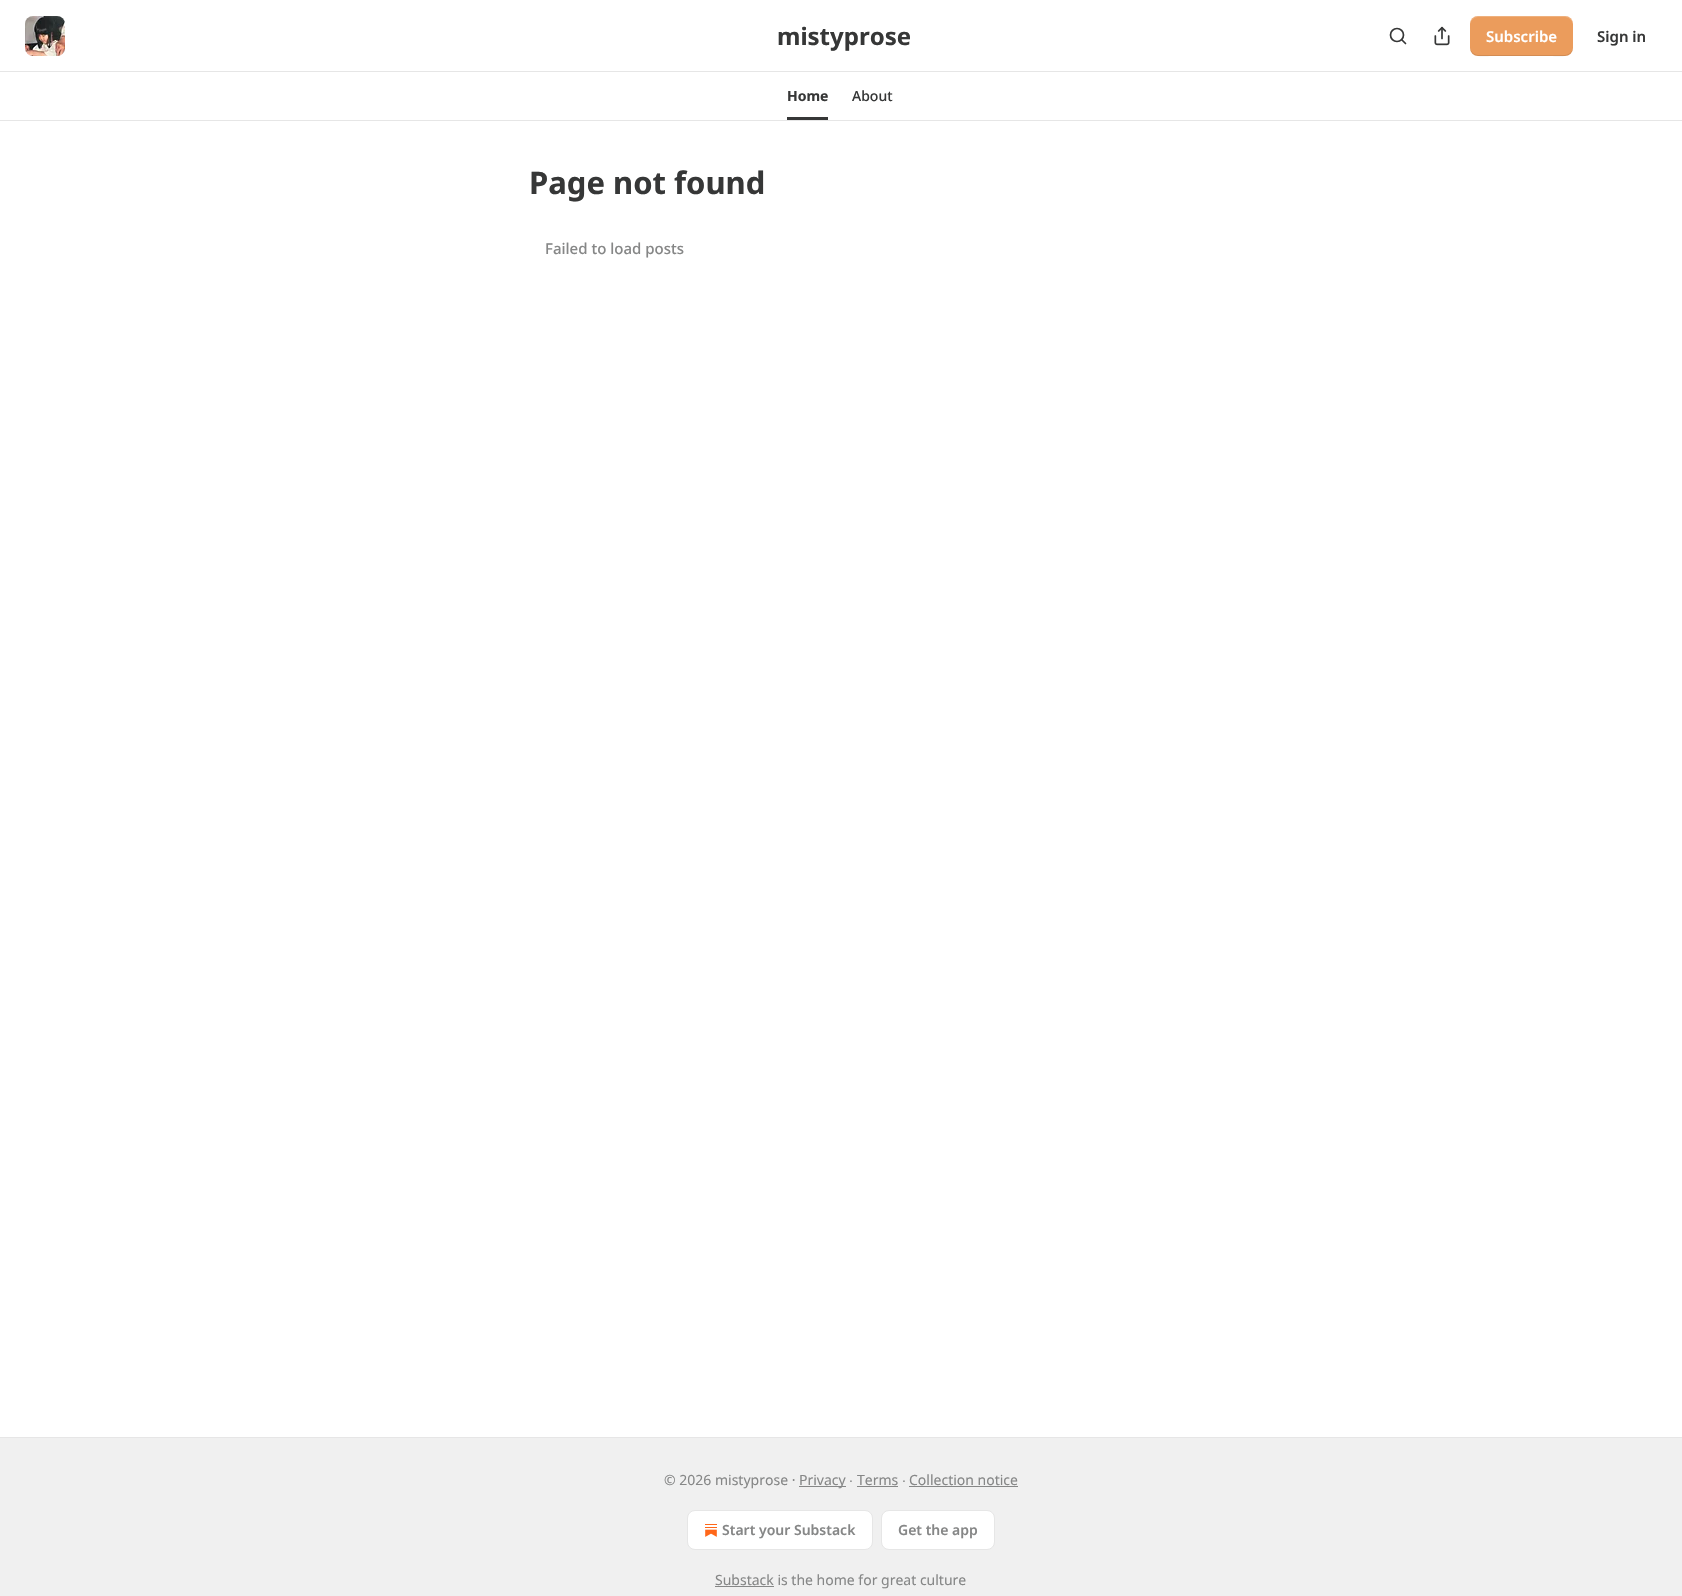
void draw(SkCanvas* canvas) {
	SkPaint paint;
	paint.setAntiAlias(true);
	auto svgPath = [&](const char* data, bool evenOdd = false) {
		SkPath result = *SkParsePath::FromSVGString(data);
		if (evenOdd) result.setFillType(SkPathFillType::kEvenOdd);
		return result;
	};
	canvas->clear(0xffffffff);
	canvas->drawImageRect(SkImages::DeferredFromEncodedData(SkData::MakeFromFileName("img1.png")), SkRect::MakeXYWH(25, 16, 40, 40), SkSamplingOptions());
	SkFont f1(fontMgr->matchFamilyStyle("Noto Sans", SkFontStyle::Bold()), 24);
	f1.setSubpixel(true);
	paint.setColor(0xff363737);
	canvas->drawString("mistyprose", 777, 45, f1, paint);
	paint.setStroke(true);
	paint.setStrokeWidth(1.7);
	canvas->drawCircle(1397, 35, 6.5, paint);
	paint.setStrokeCap(SkPaint::kRound_Cap);
	paint.setStrokeJoin(SkPaint::kRound_Join);
	canvas->drawPath(svgPath("M1405.5 43.5L1402 40"), paint);
	canvas->drawImageRect(SkImages::DeferredFromEncodedData(SkData::MakeFromFileName("img2.png")), SkRect::MakeXYWH(1434, 26, 16, 20), SkSamplingOptions());
	paint.setStroke(false);
	paint.setColor(0xffeb9c5c);
	canvas->drawRoundRect(SkRect::MakeXYWH(1470, 16, 103, 40), 8, 8, paint);
	paint.setColor(0x1a000000);
	canvas->drawPath(svgPath("M1470 47C1470 59 1484 56 1492 56H1550C1559 56 1573 59 1573 47C1573 51 1569 55 1565 55H1478C1474 55 1470 51 1470 47Z"), paint);
	paint.setColor(0x33ffffff);
	canvas->drawPath(svgPath("M1478 17H1565C1569 17 1573 21 1573 25C1573 13 1559 16 1550 16H1492C1484 16 1470 13 1470 25C1470 21 1474 17 1478 17Z"), paint);
	SkFont f2(fontMgr->matchFamilyStyle("Noto Sans", SkFontStyle(600, SkFontStyle::kNormal_Width, SkFontStyle::kUpright_Slant)), 15);
	f2.setSubpixel(true);
	paint.setColor(0xffffffff);
	canvas->drawString("Subscribe", 1486, 42, f2, paint);
	paint.setColor(0xff363737);
	canvas->drawString("Sign in", 1597, 42, f2, paint);
	paint.setColor(0xffe6e6e6);
	canvas->drawRect(SkRect::MakeXYWH(0, 71, 1682, 1), paint);
	canvas->drawRect(SkRect::MakeXYWH(0, 120, 1682, 1), paint);
	paint.setColor(0xff363737);
	canvas->drawRect(SkRect::MakeXYWH(787, 117, 41, 3), paint);
	SkFont f3(fontMgr->matchFamilyStyle("Noto Sans", SkFontStyle::Bold()), 14);
	f3.setSubpixel(true);
	canvas->drawString("Home", 787, 101, f3, paint);
	SkFont f4(fontMgr->matchFamilyStyle("Noto Sans", SkFontStyle(500, SkFontStyle::kNormal_Width, SkFontStyle::kUpright_Slant)), 14);
	f4.setSubpixel(true);
	canvas->drawString("About", 852, 101, f4, paint);
	SkFont f5(fontMgr->matchFamilyStyle("Noto Sans", SkFontStyle::Bold()), 31);
	f5.setSubpixel(true);
	canvas->drawString("Page not found", 529, 194, f5, paint);
	SkFont f6(fontMgr->matchFamilyStyle("Noto Sans", SkFontStyle(500, SkFontStyle::kNormal_Width, SkFontStyle::kUpright_Slant)), 15);
	f6.setSubpixel(true);
	paint.setColor(0xff868787);
	canvas->drawString("Failed to load posts", 545, 254, f6, paint);
	paint.setColor(0xfff0f0f0);
	canvas->drawRect(SkRect::MakeXYWH(0, 1438, 1682, 158), paint);
	paint.setColor(0xffe6e6e6);
	canvas->drawRect(SkRect::MakeXYWH(0, 1437, 1682, 1), paint);
	SkFont f7(fontMgr->matchFamilyStyle("Noto Sans", SkFontStyle::Normal()), 14);
	f7.setSubpixel(true);
	paint.setColor(0xff868787);
	canvas->drawString("© 2026 mistyprose ·", 664, 1485, f7, paint);
	canvas->drawRect(SkRect::MakeXYWH(799, 1486, 47, 1), paint);
	canvas->drawString("Privacy", 799, 1485, f7, paint);
	SkFont f8(fontMgr->matchFamilyStyle("Liberation Sans", SkFontStyle::Normal()), 14);
	f8.setSubpixel(true);
	canvas->drawString("∙", 849, 1485, f8, paint);
	canvas->drawString("Terms", 857, 1485, f7, paint);
	canvas->drawRect(SkRect::MakeXYWH(857, 1486, 41, 1), paint);
	canvas->drawString("∙", 902, 1485, f8, paint);
	canvas->drawString("Collection notice", 909, 1485, f7, paint);
	canvas->drawRect(SkRect::MakeXYWH(909, 1486, 109, 1), paint);
	paint.setColor(0xffffffff);
	canvas->drawRoundRect(SkRect::MakeXYWH(687.5, 1510.5, 185, 39), 7.5, 7.5, paint);
	paint.setStroke(true);
	paint.setStrokeWidth(1);
	paint.setStrokeCap(SkPaint::kButt_Cap);
	paint.setStrokeJoin(SkPaint::kMiter_Join);
	paint.setColor(0xffe6e6e6);
	canvas->drawRoundRect(SkRect::MakeXYWH(687.5, 1510.5, 185, 39), 7.5, 7.5, paint);
	canvas->drawImageRect(SkImages::DeferredFromEncodedData(SkData::MakeFromFileName("img3.png")), SkRect::MakeXYWH(705, 1524, 12, 13), SkSamplingOptions());
	SkFont f9(fontMgr->matchFamilyStyle("Noto Sans", SkFontStyle(600, SkFontStyle::kNormal_Width, SkFontStyle::kUpright_Slant)), 14);
	f9.setSubpixel(true);
	paint.setStroke(false);
	paint.setColor(0xff868787);
	canvas->drawString("Start your Substack", 722, 1535, f9, paint);
	paint.setColor(0xffffffff);
	canvas->drawRoundRect(SkRect::MakeXYWH(881.5, 1510.5, 113, 39), 7.5, 7.5, paint);
	paint.setStroke(true);
	paint.setColor(0xffe6e6e6);
	canvas->drawRoundRect(SkRect::MakeXYWH(881.5, 1510.5, 113, 39), 7.5, 7.5, paint);
	paint.setStroke(false);
	paint.setColor(0xff868787);
	canvas->drawString("Get the app", 898, 1535, f9, paint);
	canvas->drawRect(SkRect::MakeXYWH(715, 1586, 59, 1), paint);
	canvas->drawString("Substack is the home for great culture", 715, 1585, f7, paint);
}
